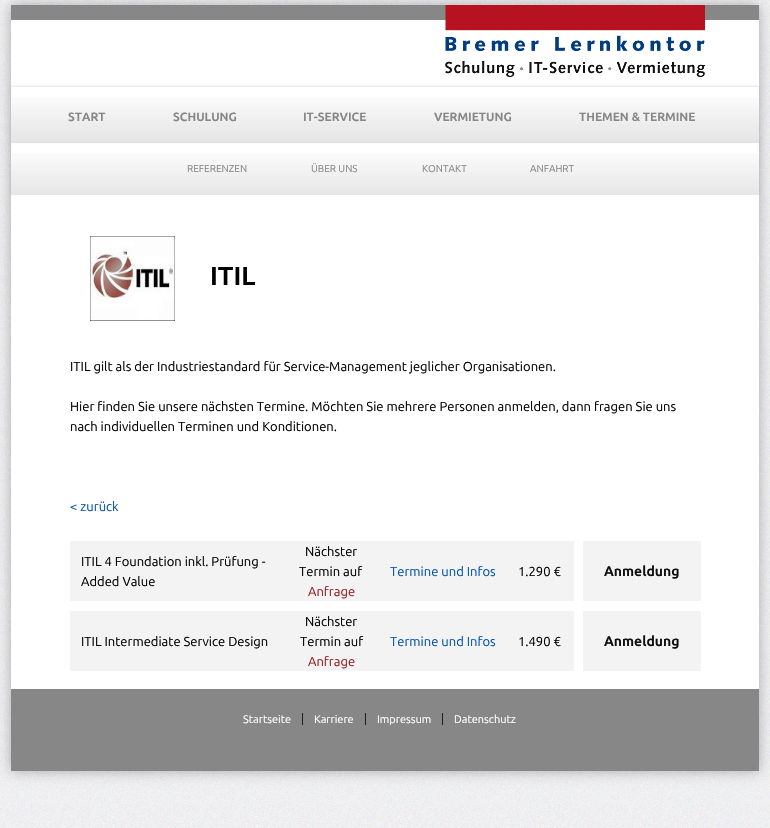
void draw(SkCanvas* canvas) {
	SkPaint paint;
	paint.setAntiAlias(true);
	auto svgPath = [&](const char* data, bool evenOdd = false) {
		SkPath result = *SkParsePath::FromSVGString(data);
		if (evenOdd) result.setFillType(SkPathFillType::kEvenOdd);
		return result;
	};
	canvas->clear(0xffffffff);
	canvas->drawImageRect(SkImages::DeferredFromEncodedData(SkData::MakeFromFileName("img1.png")), SkRect::MakeXYWH(0, 0, 770, 828), SkSamplingOptions());
	paint.setColor(0x4d000000);
	paint.setMaskFilter(SkMaskFilter::MakeBlur(kNormal_SkBlurStyle, 6.5));
	canvas->drawRect(SkRect::MakeXYWH(11, 5, 748, 766), paint);
	paint.setMaskFilter(nullptr);
	paint.setColor(0xffffffff);
	canvas->drawRect(SkRect::MakeXYWH(11, 20, 748, 669), paint);
	paint.setColor(0xff878787);
	canvas->drawRect(SkRect::MakeXYWH(11, 5, 748, 15), paint);
	canvas->drawImageRect(SkImages::DeferredFromEncodedData(SkData::MakeFromFileName("img2.png")), SkRect::MakeXYWH(445, 5, 260, 72), SkSamplingOptions());
	canvas->save();
	canvas->clipPath(svgPath("M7 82H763V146H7ZM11 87H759V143H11Z", true), true);
	paint.setColor(0x1a000000);
	paint.setMaskFilter(SkMaskFilter::MakeBlur(kNormal_SkBlurStyle, 1));
	canvas->drawRect(SkRect::MakeXYWH(11, 86, 748, 56), paint);
	paint.setMaskFilter(nullptr);
	canvas->restore();
	canvas->drawImageRect(SkImages::DeferredFromEncodedData(SkData::MakeFromFileName("img3.png")), SkRect::MakeXYWH(11, 97, 748, 46), SkSamplingOptions());
	SkFont f1(fontMgr->matchFamilyStyle("Ubuntu", SkFontStyle::Bold()), 12);
	f1.setSubpixel(true);
	paint.setColor(0xff878787);
	canvas->drawString("START", 68, 121, f1, paint);
	canvas->drawString("SCHULUNG", 173, 121, f1, paint);
	canvas->drawString("IT-SERVICE", 303, 121, f1, paint);
	canvas->drawString("VERMIETUNG", 434, 121, f1, paint);
	canvas->drawString("THEMEN & TERMINE", 579, 121, f1, paint);
	canvas->save();
	canvas->clipPath(svgPath("M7 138H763V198H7ZM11 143H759V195H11Z", true), true);
	paint.setColor(0x1a000000);
	paint.setMaskFilter(SkMaskFilter::MakeBlur(kNormal_SkBlurStyle, 1));
	canvas->drawRect(SkRect::MakeXYWH(11, 142, 748, 52), paint);
	paint.setMaskFilter(nullptr);
	canvas->restore();
	canvas->drawImageRect(SkImages::DeferredFromEncodedData(SkData::MakeFromFileName("img4.png")), SkRect::MakeXYWH(11, 153, 748, 42), SkSamplingOptions());
	SkFont f2(fontMgr->matchFamilyStyle("Ubuntu", SkFontStyle::Normal()), 10);
	f2.setSubpixel(true);
	paint.setColor(0xff878787);
	canvas->drawString("REFERENZEN", 187, 172, f2, paint);
	canvas->drawString("ÜBER UNS", 311, 172, f2, paint);
	canvas->drawString("KONTAKT", 422, 172, f2, paint);
	canvas->drawString("ANFAHRT", 530, 172, f2, paint);
	canvas->drawImageRect(SkImages::DeferredFromEncodedData(SkData::MakeFromFileName("img5.png")), SkRect::MakeXYWH(90, 236, 85, 85), SkSamplingOptions());
	SkFont f3(fontMgr->matchFamilyStyle("Ubuntu", SkFontStyle::Bold()), 26);
	f3.setSubpixel(true);
	paint.setColor(0xff000000);
	canvas->drawString("ITIL", 210, 285, f3, paint);
	SkFont f4(fontMgr->matchFamilyStyle("Ubuntu", SkFontStyle::Normal()), 13);
	f4.setSubpixel(true);
	canvas->drawString("ITIL gilt als der Industriestandard für Service-Management jeglicher Organisationen.", 70, 371, f4, paint);
	canvas->drawString("Hier finden Sie unsere nächsten Termine. Möchten Sie mehrere Personen anmelden, dann fragen Sie uns", 70, 411, f4, paint);
	canvas->drawString("nach individuellen Terminen und Konditionen.", 70, 431, f4, paint);
	paint.setColor(0xff0252aa);
	canvas->drawString("< zurück", 70, 511, f4, paint);
	paint.setColor(0xfff3f3f3);
	canvas->drawRect(SkRect::MakeXYWH(70, 541, 504, 60), paint);
	paint.setColor(0xff000000);
	canvas->drawString("ITIL 4 Foundation inkl. Prüfung -", 81, 566, f4, paint);
	canvas->drawString("Added Value", 81, 586, f4, paint);
	canvas->drawString("Nächster", 305, 556, f4, paint);
	canvas->drawString("Termin auf", 299, 576, f4, paint);
	paint.setColor(0xff981e23);
	canvas->drawString("Anfrage", 308, 596, f4, paint);
	paint.setColor(0xff0252aa);
	canvas->drawString("Termine und Infos", 390, 576, f4, paint);
	paint.setColor(0xff000000);
	canvas->drawString("1.290 €", 518, 576, f4, paint);
	paint.setColor(0xfff3f3f3);
	canvas->drawRect(SkRect::MakeXYWH(583, 541, 118, 60), paint);
	SkFont f5(fontMgr->matchFamilyStyle("Ubuntu", SkFontStyle::Bold()), 14);
	f5.setSubpixel(true);
	paint.setColor(0xff0f0f0f);
	canvas->drawString("Anmeldung", 604, 576, f5, paint);
	paint.setColor(0xfff3f3f3);
	canvas->drawRect(SkRect::MakeXYWH(70, 611, 504, 60), paint);
	paint.setColor(0xff000000);
	canvas->drawString("ITIL Intermediate Service Design", 81, 646, f4, paint);
	canvas->drawString("Nächster", 305, 626, f4, paint);
	canvas->drawString("Termin auf", 300, 646, f4, paint);
	paint.setColor(0xff981e23);
	canvas->drawString("Anfrage", 308, 666, f4, paint);
	paint.setColor(0xff0252aa);
	canvas->drawString("Termine und Infos", 390, 646, f4, paint);
	paint.setColor(0xff000000);
	canvas->drawString("1.490 €", 518, 646, f4, paint);
	paint.setColor(0xfff3f3f3);
	canvas->drawRect(SkRect::MakeXYWH(583, 611, 118, 60), paint);
	paint.setColor(0xff0f0f0f);
	canvas->drawString("Anmeldung", 604, 646, f5, paint);
	paint.setColor(0xff878787);
	canvas->drawRect(SkRect::MakeXYWH(11, 689, 748, 82), paint);
	SkFont f6(fontMgr->matchFamilyStyle("Ubuntu", SkFontStyle::Normal()), 11);
	f6.setSubpixel(true);
	paint.setColor(0xffffffff);
	canvas->drawString("Startseite", 243, 723, f6, paint);
	canvas->drawString("Karriere", 314, 723, f6, paint);
	paint.setColor(0xff1a1f20);
	canvas->drawRect(SkRect::MakeXYWH(302, 713, 1, 12), paint);
	paint.setColor(0xffffffff);
	canvas->drawString("Impressum", 377, 723, f6, paint);
	paint.setColor(0xff1a1f20);
	canvas->drawRect(SkRect::MakeXYWH(365, 713, 1, 12), paint);
	paint.setColor(0xffffffff);
	canvas->drawString("Datenschutz", 454, 723, f6, paint);
	paint.setColor(0xff1a1f20);
	canvas->drawRect(SkRect::MakeXYWH(442, 713, 1, 12), paint);
}
